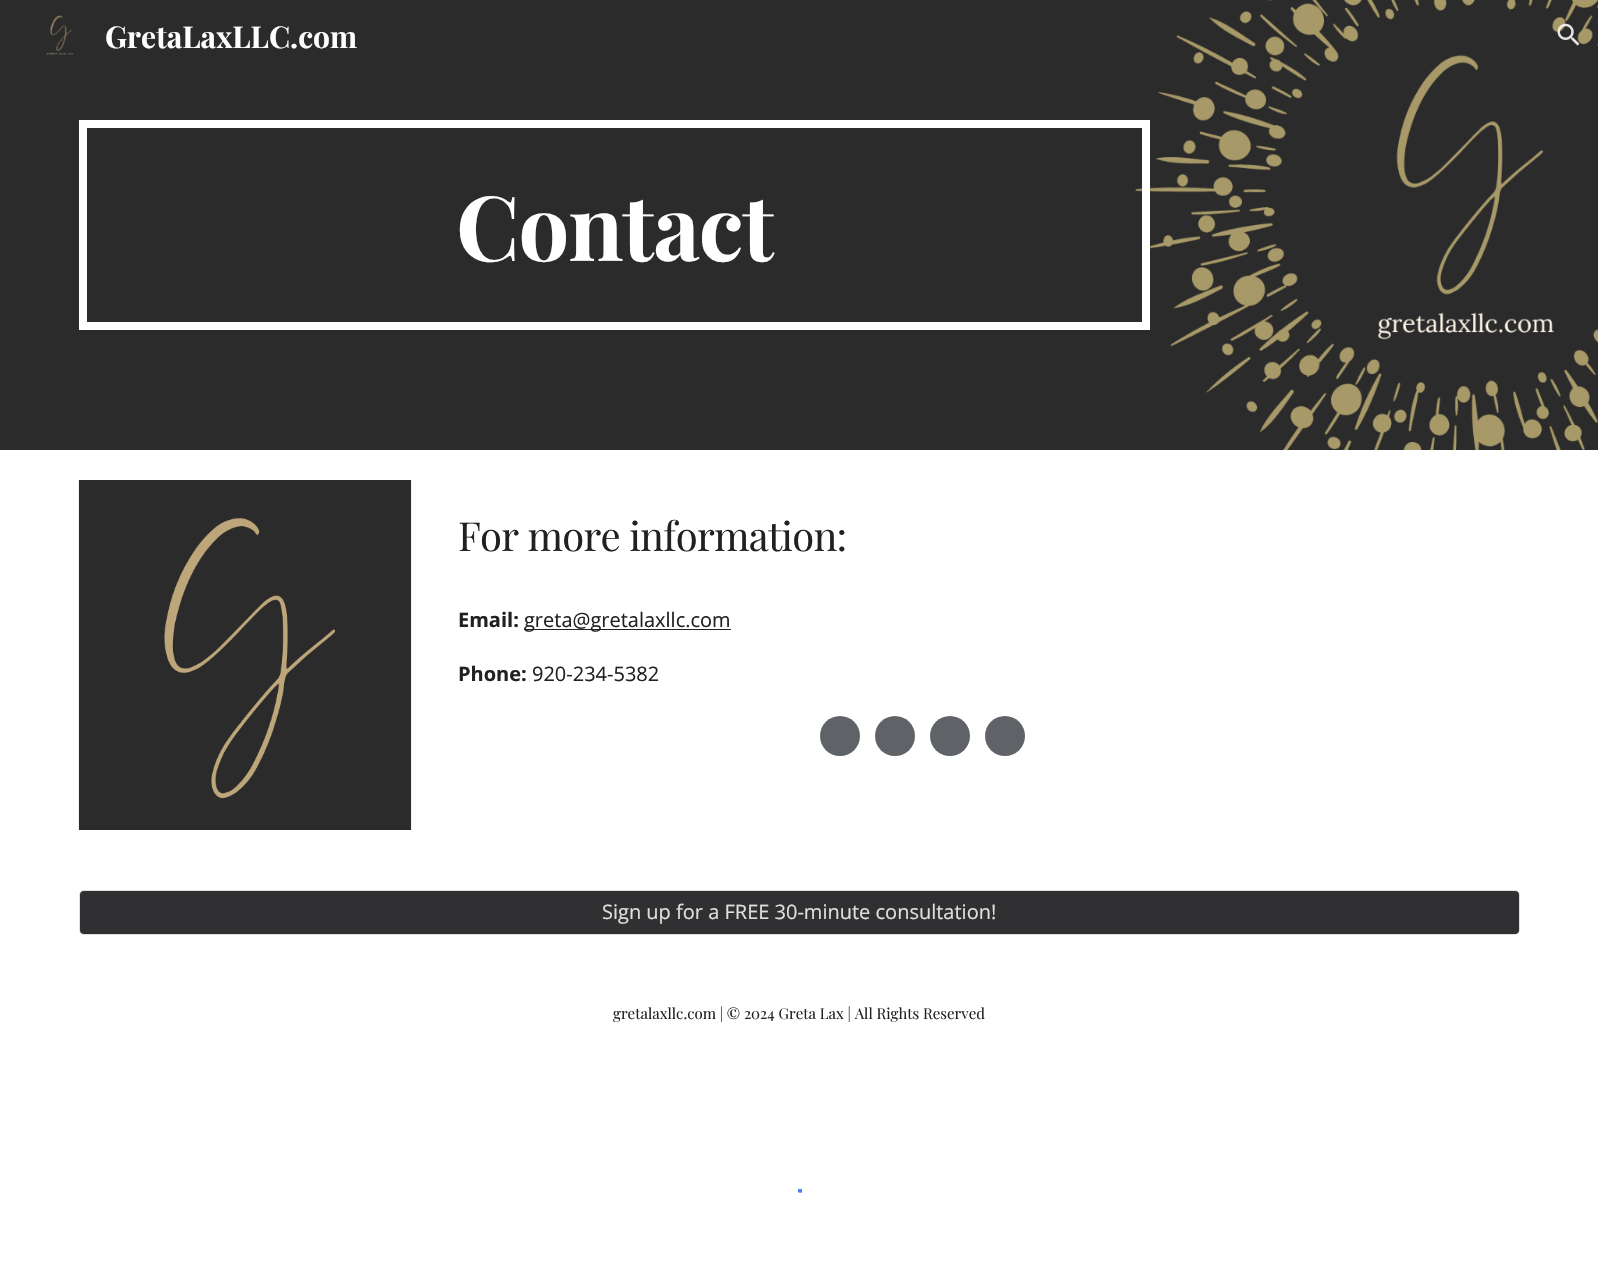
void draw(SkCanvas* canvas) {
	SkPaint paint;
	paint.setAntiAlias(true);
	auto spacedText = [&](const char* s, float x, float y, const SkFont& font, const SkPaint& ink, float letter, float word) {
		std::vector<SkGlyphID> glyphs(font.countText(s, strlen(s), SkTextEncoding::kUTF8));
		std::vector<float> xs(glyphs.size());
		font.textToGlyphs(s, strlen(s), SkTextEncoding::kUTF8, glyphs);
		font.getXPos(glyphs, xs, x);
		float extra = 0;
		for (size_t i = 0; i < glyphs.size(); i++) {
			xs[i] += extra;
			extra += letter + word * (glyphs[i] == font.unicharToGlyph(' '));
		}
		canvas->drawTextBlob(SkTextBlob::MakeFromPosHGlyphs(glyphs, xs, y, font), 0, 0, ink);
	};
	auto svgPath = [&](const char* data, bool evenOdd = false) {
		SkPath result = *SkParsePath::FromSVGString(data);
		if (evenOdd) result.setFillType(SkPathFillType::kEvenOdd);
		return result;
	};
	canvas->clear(0xffffffff);
	canvas->drawImageRect(SkImages::DeferredFromEncodedData(SkData::MakeFromFileName("img3.png")), SkRect::MakeXYWH(0, 0, 1598, 450), SkSamplingOptions());
	canvas->drawImageRect(SkImages::DeferredFromEncodedData(SkData::MakeFromFileName("img1.png")), SkRect::MakeXYWH(46, 15, 28, 40), SkSamplingOptions());
	SkFont f1(fontMgr->matchFamilyStyle("Playfair Display", SkFontStyle::Bold()), 30);
	f1.setSubpixel(true);
	paint.setColor(0xffffffff);
	canvas->drawString("GretaLaxLLC.com", 105, 48, f1, paint);
	canvas->drawImageRect(SkImages::DeferredFromEncodedData(SkData::MakeFromFileName("img2.png")), SkRect::MakeXYWH(1557, 23, 23, 23), SkSamplingOptions());
	paint.setStroke(true);
	paint.setStrokeWidth(8);
	canvas->drawRect(SkRect::MakeXYWH(83, 124, 1063, 202), paint);
	SkFont f2(fontMgr->matchFamilyStyle("Playfair Display", SkFontStyle::Bold()), 90);
	f2.setSubpixel(true);
	paint.setStroke(false);
	spacedText("Contact", 456, 261, f2, paint, -1, 0);
	canvas->drawImageRect(SkImages::DeferredFromEncodedData(SkData::MakeFromFileName("img4.png")), SkRect::MakeXYWH(78, 480, 334, 350), SkSamplingOptions());
	SkFont f3(fontMgr->matchFamilyStyle("Playfair Display", SkFontStyle::Normal()), 40);
	f3.setSubpixel(true);
	paint.setColor(0xff212121);
	spacedText("For more information:", 458, 551, f3, paint, -0.75, 0);
	SkFont f4(fontMgr->matchFamilyStyle("Open Sans", SkFontStyle::Bold()), 20);
	f4.setSubpixel(true);
	canvas->drawString("Email:", 458, 627, f4, paint);
	canvas->drawRect(SkRect::MakeXYWH(524, 629, 207, 1), paint);
	SkFont f5(fontMgr->matchFamilyStyle("Open Sans", SkFontStyle::Normal()), 20);
	f5.setSubpixel(true);
	canvas->drawString("greta@gretalaxllc.com", 524, 627, f5, paint);
	canvas->drawString("Phone:", 458, 681, f4, paint);
	canvas->drawString("920-234-5382", 532, 681, f5, paint);
	paint.setColor(0xff5f6368);
	canvas->drawCircle(840, 736, 20, paint);
	canvas->drawCircle(895, 736, 20, paint);
	canvas->drawCircle(950, 736, 20, paint);
	canvas->drawCircle(1005, 736, 20, paint);
	paint.setStroke(true);
	paint.setStrokeWidth(1);
	paint.setColor(0xffe1dfdb);
	canvas->drawRoundRect(SkRect::MakeXYWH(79.5, 890.5, 1440, 44), 4.5, 4.5, paint);
	paint.setStroke(false);
	paint.setColor(0xff303033);
	canvas->drawRoundRect(SkRect::MakeXYWH(80, 891, 1439, 43), 4, 4, paint);
	paint.setColor(0xffe1dfdb);
	canvas->drawString("Sign up for a FREE 30-minute consultation!", 602, 919, f5, paint);
	SkFont f6(fontMgr->matchFamilyStyle("Playfair Display", SkFontStyle::Normal()), 15);
	f6.setSubpixel(true);
	paint.setColor(0xff212121);
	canvas->drawString("gretalaxllc.com | © 2024 Greta Lax | All Rights Reserved", 613, 1019, f6, paint);
	canvas->save();
	canvas->clipRect(SkRect::MakeXYWH(798, 1189, 4, 35));
	paint.setStroke(true);
	paint.setStrokeWidth(3.8);
	paint.setColor(0xff4486f4);
	canvas->drawPath(svgPath("M789 1217.5C785 1213.5 783.5 1208 784.5 1203C785.5 1199 787.5 1195.5 791 1193.5C806 1182.5 822.5 1204.5 810 1217.5"), paint);
	canvas->restore();
}
